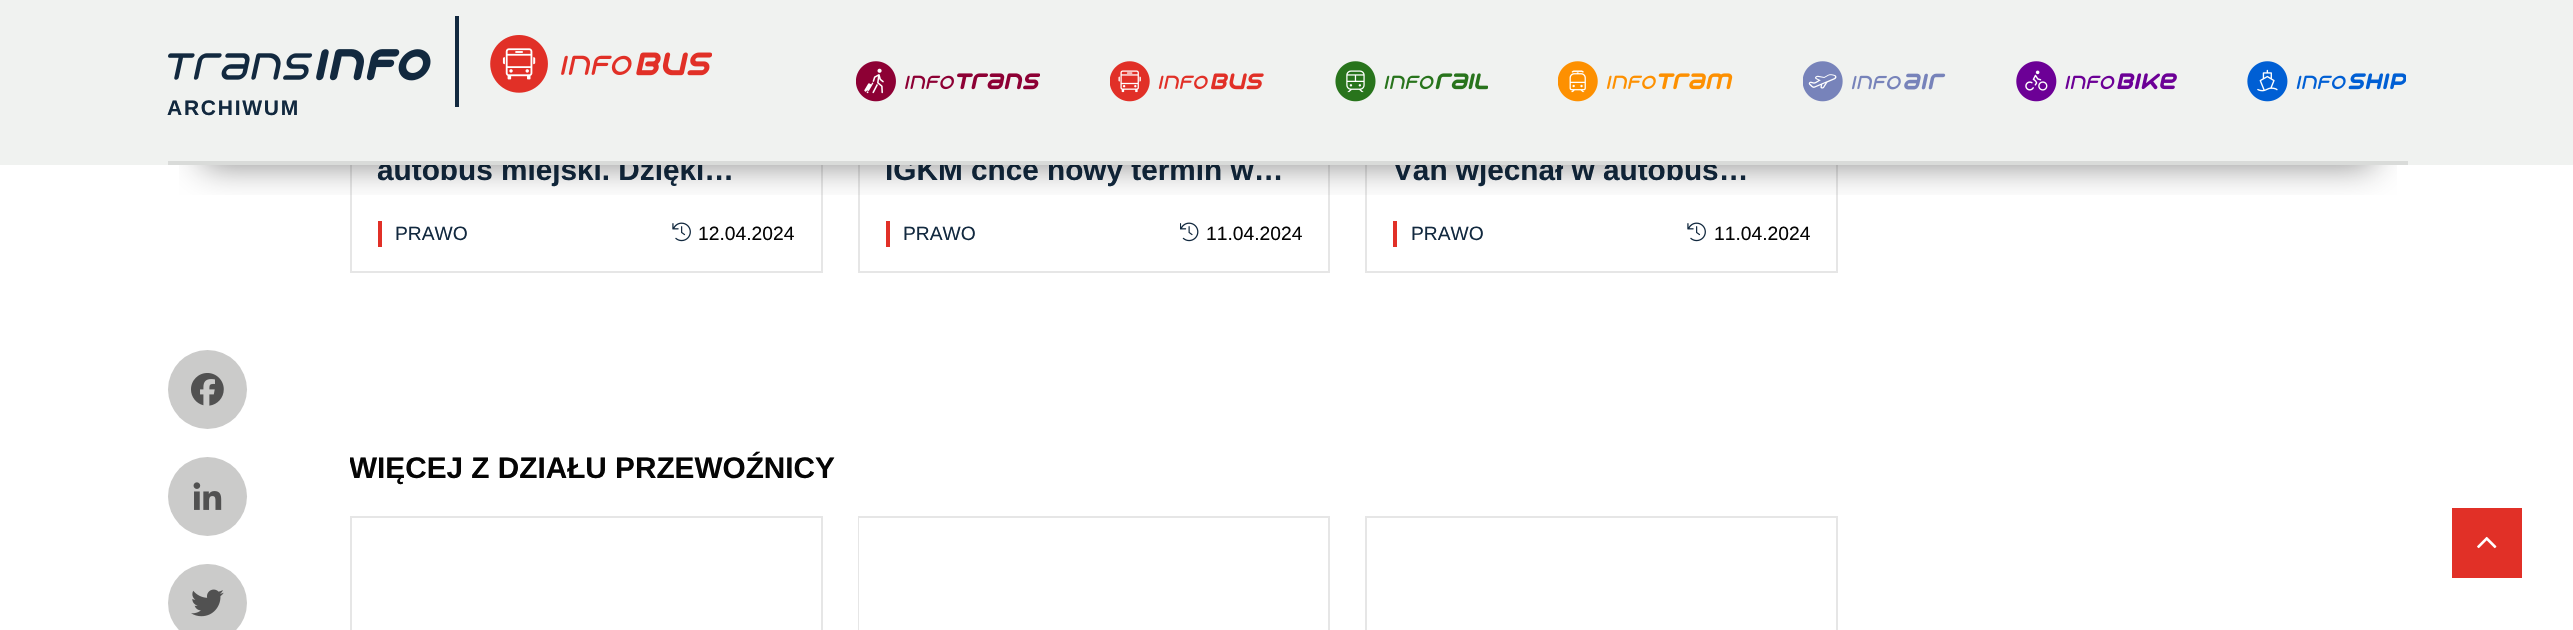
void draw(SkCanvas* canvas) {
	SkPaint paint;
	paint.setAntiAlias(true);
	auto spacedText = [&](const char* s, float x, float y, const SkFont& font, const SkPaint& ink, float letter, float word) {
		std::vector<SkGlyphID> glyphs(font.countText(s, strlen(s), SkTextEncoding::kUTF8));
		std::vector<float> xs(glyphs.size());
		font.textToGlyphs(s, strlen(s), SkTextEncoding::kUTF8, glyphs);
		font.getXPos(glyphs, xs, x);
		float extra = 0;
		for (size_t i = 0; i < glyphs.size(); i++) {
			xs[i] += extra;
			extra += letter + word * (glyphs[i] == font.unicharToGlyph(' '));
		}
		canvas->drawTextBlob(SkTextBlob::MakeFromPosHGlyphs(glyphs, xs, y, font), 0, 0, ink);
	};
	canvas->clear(0xffffffff);
	paint.setStroke(true);
	paint.setStrokeWidth(2);
	paint.setColor(0xffe6e6e6);
	canvas->drawRect(SkRect::MakeXYWH(351, -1, 471, 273), paint);
	SkFont f1(fontMgr->matchFamilyStyle("Liberation Sans", SkFontStyle::Bold()), 29.75);
	f1.setSubpixel(true);
	paint.setStroke(false);
	paint.setColor(0xff12293f);
	canvas->drawString("autobus miejski. Dzięki…", 377, 180, f1, paint);
	paint.setStroke(true);
	paint.setColor(0xffe6e6e6);
	canvas->drawRect(SkRect::MakeXYWH(859, -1, 470, 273), paint);
	paint.setStroke(false);
	paint.setColor(0xff12293f);
	canvas->drawString("IGKM chce nowy termin w…", 885, 180, f1, paint);
	paint.setStroke(true);
	paint.setColor(0xffe6e6e6);
	canvas->drawRect(SkRect::MakeXYWH(1366, -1, 471, 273), paint);
	paint.setStroke(false);
	paint.setColor(0xff12293f);
	canvas->drawString("Van wjechał w autobus…", 1393, 180, f1, paint);
	paint.setColor(0xfff0f2f0);
	canvas->drawRect(SkRect::MakeXYWH(0, 0, 2573, 165), paint);
	canvas->save();
	canvas->clipRect(SkRect::MakeXYWH(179, 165, 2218, 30));
	paint.setColor(0x78000000);
	paint.setMaskFilter(SkMaskFilter::MakeBlur(kNormal_SkBlurStyle, 17.5));
	canvas->drawRect(SkRect::MakeXYWH(203, 70, 2170, 95), paint);
	paint.setMaskFilter(nullptr);
	canvas->restore();
	paint.setColor(0xffd9dbd9);
	canvas->drawRect(SkRect::MakeXYWH(168, 161, 2240, 4), paint);
	canvas->drawImageRect(SkImages::DeferredFromEncodedData(SkData::MakeFromFileName("img1.png")), SkRect::MakeXYWH(856, 61, 184, 41), SkSamplingOptions());
	canvas->drawImageRect(SkImages::DeferredFromEncodedData(SkData::MakeFromFileName("img2.png")), SkRect::MakeXYWH(1110, 61, 154, 41), SkSamplingOptions());
	canvas->drawImageRect(SkImages::DeferredFromEncodedData(SkData::MakeFromFileName("img3.png")), SkRect::MakeXYWH(1335, 61, 153, 41), SkSamplingOptions());
	canvas->drawImageRect(SkImages::DeferredFromEncodedData(SkData::MakeFromFileName("img4.png")), SkRect::MakeXYWH(1558, 61, 175, 41), SkSamplingOptions());
	canvas->drawImageRect(SkImages::DeferredFromEncodedData(SkData::MakeFromFileName("img5.png")), SkRect::MakeXYWH(1803, 61, 143, 41), SkSamplingOptions());
	canvas->drawImageRect(SkImages::DeferredFromEncodedData(SkData::MakeFromFileName("img6.png")), SkRect::MakeXYWH(2016, 61, 161, 41), SkSamplingOptions());
	canvas->drawImageRect(SkImages::DeferredFromEncodedData(SkData::MakeFromFileName("img7.png")), SkRect::MakeXYWH(2247, 61, 159, 41), SkSamplingOptions());
	canvas->drawImageRect(SkImages::DeferredFromEncodedData(SkData::MakeFromFileName("img8.png")), SkRect::MakeXYWH(168, 49, 263, 32), SkSamplingOptions());
	paint.setColor(0xff12293f);
	canvas->drawRect(SkRect::MakeXYWH(455, 16, 4, 91), paint);
	canvas->drawImageRect(SkImages::DeferredFromEncodedData(SkData::MakeFromFileName("img9.png")), SkRect::MakeXYWH(490, 35, 222, 58), SkSamplingOptions());
	SkFont f2(fontMgr->matchFamilyStyle("Liberation Sans", SkFontStyle::Bold()), 21);
	f2.setSubpixel(true);
	spacedText("ARCHIWUM", 167, 115, f2, paint, 1.75, 0);
	paint.setColor(0xffcbcbca);
	canvas->drawCircle(207.5, 389.5, 39.5, paint);
	canvas->drawImageRect(SkImages::DeferredFromEncodedData(SkData::MakeFromFileName("img10.png")), SkRect::MakeXYWH(191, 373, 33, 33), SkSamplingOptions());
	canvas->drawCircle(207.5, 496.5, 39.5, paint);
	canvas->drawImageRect(SkImages::DeferredFromEncodedData(SkData::MakeFromFileName("img11.png")), SkRect::MakeXYWH(193, 482, 29, 28), SkSamplingOptions());
	canvas->drawRoundRect(SkRect::MakeXYWH(168, 564, 79, 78), 39, 39, paint);
	canvas->drawImageRect(SkImages::DeferredFromEncodedData(SkData::MakeFromFileName("img12.png")), SkRect::MakeXYWH(191, 589, 33, 28), SkSamplingOptions());
	paint.setColor(0xffe13027);
	canvas->drawRect(SkRect::MakeXYWH(378, 221, 4, 26), paint);
	SkFont f3(fontMgr->matchFamilyStyle("Liberation Sans", SkFontStyle::Normal()), 19.25);
	f3.setSubpixel(true);
	paint.setColor(0xff12293f);
	canvas->drawString("PRAWO", 395, 240, f3, paint);
	canvas->drawImageRect(SkImages::DeferredFromEncodedData(SkData::MakeFromFileName("img13.png")), SkRect::MakeXYWH(672, 222, 19, 20), SkSamplingOptions());
	paint.setColor(0xff050505);
	canvas->drawString("12.04.2024", 698, 240, f3, paint);
	paint.setColor(0xffe13027);
	canvas->drawRect(SkRect::MakeXYWH(886, 221, 4, 26), paint);
	paint.setColor(0xff12293f);
	canvas->drawString("PRAWO", 903, 240, f3, paint);
	canvas->drawImageRect(SkImages::DeferredFromEncodedData(SkData::MakeFromFileName("img14.png")), SkRect::MakeXYWH(1180, 222, 19, 20), SkSamplingOptions());
	paint.setColor(0xff050505);
	canvas->drawString("11.04.2024", 1206, 240, f3, paint);
	paint.setColor(0xffe13027);
	canvas->drawRect(SkRect::MakeXYWH(1393, 221, 4, 26), paint);
	paint.setColor(0xff12293f);
	canvas->drawString("PRAWO", 1411, 240, f3, paint);
	canvas->drawImageRect(SkImages::DeferredFromEncodedData(SkData::MakeFromFileName("img13.png")), SkRect::MakeXYWH(1687, 222, 19, 20), SkSamplingOptions());
	paint.setColor(0xff050505);
	canvas->drawString("11.04.2024", 1714, 240, f3, paint);
	canvas->save();
	canvas->clipRect(SkRect::MakeXYWH(350, 366, 1489, 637));
	canvas->drawString("WIĘCEJ Z DZIAŁU PRZEWOŹNICY", 349, 478, f1, paint);
	canvas->restore();
	paint.setStroke(true);
	paint.setColor(0xffe6e6e6);
	canvas->drawRect(SkRect::MakeXYWH(351, 517, 471, 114), paint);
	canvas->drawRect(SkRect::MakeXYWH(859, 517, 470, 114), paint);
	paint.setStroke(false);
	paint.setColor(0xffffffff);
	canvas->drawRect(SkRect::MakeXYWH(859, 518, 1, 112), paint);
	paint.setStroke(true);
	paint.setColor(0xffe6e6e6);
	canvas->drawRect(SkRect::MakeXYWH(1366, 517, 471, 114), paint);
	paint.setStroke(false);
	paint.setColor(0xffe13027);
	canvas->drawRect(SkRect::MakeXYWH(2452, 508, 70, 70), paint);
	canvas->drawImageRect(SkImages::DeferredFromEncodedData(SkData::MakeFromFileName("img15.png")), SkRect::MakeXYWH(2477, 536, 20, 13), SkSamplingOptions());
}
